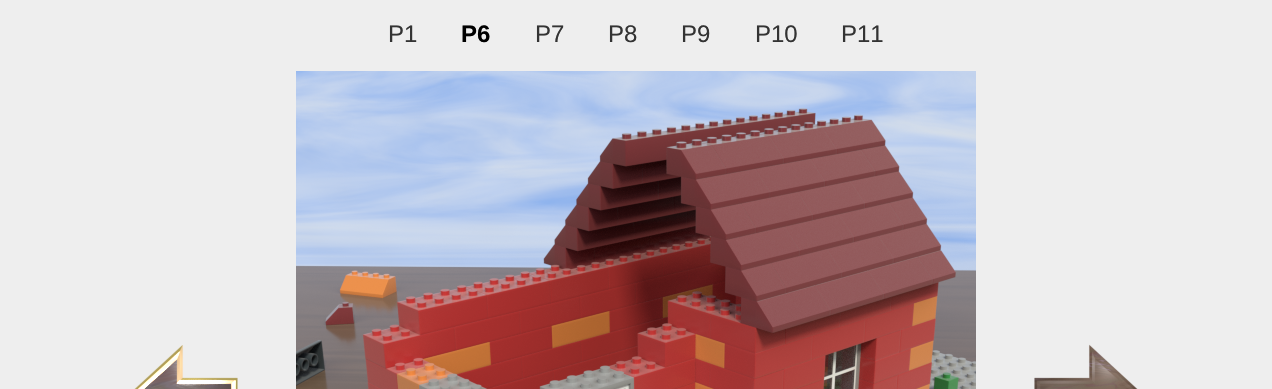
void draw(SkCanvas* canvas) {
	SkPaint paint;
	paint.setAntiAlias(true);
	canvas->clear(0xffeeeeee);
	SkFont f1(fontMgr->matchFamilyStyle("Liberation Sans", SkFontStyle::Normal()), 24);
	f1.setSubpixel(true);
	paint.setColor(0xff333333);
	canvas->drawString("P1", 388, 42, f1, paint);
	SkFont f2(fontMgr->matchFamilyStyle("Liberation Sans", SkFontStyle::Bold()), 24);
	f2.setSubpixel(true);
	paint.setColor(0xff000000);
	canvas->drawString("P6", 461, 42, f2, paint);
	paint.setColor(0xff333333);
	canvas->drawString("P7", 535, 42, f1, paint);
	canvas->drawString("P8", 608, 42, f1, paint);
	canvas->drawString("P9", 681, 42, f1, paint);
	canvas->drawString("P10", 755, 42, f1, paint);
	canvas->drawString("P11", 841, 42, f1, paint);
	canvas->drawImageRect(SkImages::DeferredFromEncodedData(SkData::MakeFromFileName("img1.png")), SkRect::MakeXYWH(134, 345, 104, 44), SkSamplingOptions());
	canvas->drawImageRect(SkImages::DeferredFromEncodedData(SkData::MakeFromFileName("img2.png")), SkRect::MakeXYWH(296, 71, 680, 318), SkSamplingOptions());
	canvas->drawImageRect(SkImages::DeferredFromEncodedData(SkData::MakeFromFileName("img3.png")), SkRect::MakeXYWH(1034, 344, 104, 45), SkSamplingOptions());
}
